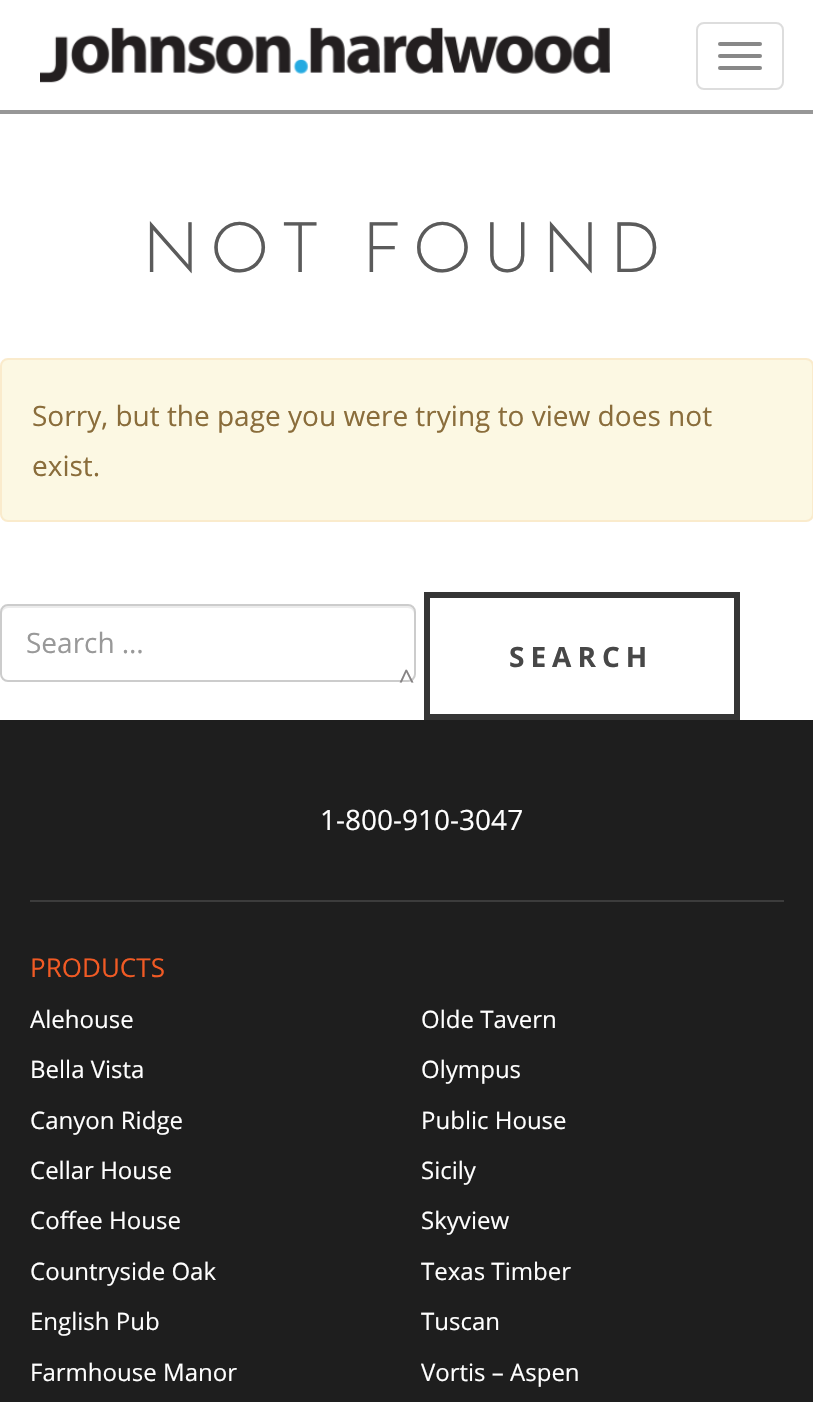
void draw(SkCanvas* canvas) {
	SkPaint paint;
	paint.setAntiAlias(true);
	auto spacedText = [&](const char* s, float x, float y, const SkFont& font, const SkPaint& ink, float letter, float word) {
		std::vector<SkGlyphID> glyphs(font.countText(s, strlen(s), SkTextEncoding::kUTF8));
		std::vector<float> xs(glyphs.size());
		font.textToGlyphs(s, strlen(s), SkTextEncoding::kUTF8, glyphs);
		font.getXPos(glyphs, xs, x);
		float extra = 0;
		for (size_t i = 0; i < glyphs.size(); i++) {
			xs[i] += extra;
			extra += letter + word * (glyphs[i] == font.unicharToGlyph(' '));
		}
		canvas->drawTextBlob(SkTextBlob::MakeFromPosHGlyphs(glyphs, xs, y, font), 0, 0, ink);
	};
	auto svgPath = [&](const char* data, bool evenOdd = false) {
		SkPath result = *SkParsePath::FromSVGString(data);
		if (evenOdd) result.setFillType(SkPathFillType::kEvenOdd);
		return result;
	};
	canvas->clear(0xffffffff);
	paint.setColor(0xff979797);
	canvas->drawRect(SkRect::MakeXYWH(0, 110, 813, 4), paint);
	canvas->drawImageRect(SkImages::DeferredFromEncodedData(SkData::MakeFromFileName("img1.png")), SkRect::MakeXYWH(40, 27, 570, 56), SkSamplingOptions());
	paint.setStroke(true);
	paint.setStrokeWidth(2);
	paint.setColor(0xffdddddd);
	canvas->drawRoundRect(SkRect::MakeXYWH(697, 23, 86, 66), 7, 7, paint);
	paint.setStroke(false);
	paint.setColor(0xff888888);
	canvas->drawRoundRect(SkRect::MakeXYWH(718, 42, 44, 4), 2, 2, paint);
	canvas->drawRoundRect(SkRect::MakeXYWH(718, 54, 44, 4), 2, 2, paint);
	canvas->drawRoundRect(SkRect::MakeXYWH(718, 66, 44, 4), 2, 2, paint);
	SkFont f1(fontMgr->matchFamilyStyle("Josefin Sans", SkFontStyle(300, SkFontStyle::kNormal_Width, SkFontStyle::kUpright_Slant)), 70);
	f1.setSubpixel(true);
	paint.setColor(0xff5b5b5b);
	spacedText("NOT FOUND", 142, 272, f1, paint, 10, 0);
	paint.setColor(0xfffcf8e3);
	canvas->drawRoundRect(SkRect::MakeXYWH(1, 359, 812, 162), 7, 7, paint);
	paint.setStroke(true);
	paint.setColor(0xfffaebcc);
	canvas->drawRoundRect(SkRect::MakeXYWH(1, 359, 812, 162), 7, 7, paint);
	SkFont f2(fontMgr->matchFamilyStyle("Open Sans", SkFontStyle::Normal()), 28);
	f2.setSubpixel(true);
	paint.setStroke(false);
	paint.setColor(0xff8a6d3b);
	canvas->drawString("Sorry, but the page you were trying to view does not", 32, 426, f2, paint);
	canvas->drawString("exist.", 32, 476, f2, paint);
	paint.setColor(0xffececec);
	canvas->drawPath(svgPath("M8 608H408C411 608 414 611 414 614V612C414 609 411 606 408 606H8C5 606 2 609 2 612V614C2 611 5 608 8 608Z"), paint);
	paint.setStroke(true);
	paint.setColor(0xffcccccc);
	canvas->drawRoundRect(SkRect::MakeXYWH(1, 605, 414, 76), 7, 7, paint);
	paint.setStroke(false);
	paint.setColor(0xff999999);
	canvas->drawString("Search …", 26, 653, f2, paint);
	paint.setStroke(true);
	paint.setStrokeWidth(6);
	paint.setColor(0xff353535);
	canvas->drawRect(SkRect::MakeXYWH(427, 595, 310, 122), paint);
	SkFont f3(fontMgr->matchFamilyStyle("Open Sans", SkFontStyle::Bold()), 28);
	f3.setSubpixel(true);
	paint.setStroke(false);
	paint.setColor(0xff474747);
	spacedText("SEARCH", 509, 667, f3, paint, 6, 0);
	paint.setColor(0xff1e1e1e);
	canvas->drawRect(SkRect::MakeXYWH(0, 720, 813, 682), paint);
	paint.setColor(0xff878485);
	canvas->drawString("^", 399, 690, f2, paint);
	paint.setColor(0xff3c3c3c);
	canvas->drawRect(SkRect::MakeXYWH(30, 900, 754, 2), paint);
	paint.setColor(0xffffffff);
	canvas->drawString("1-800-910-3047", 320, 830, f2, paint);
	SkFont f4(fontMgr->matchFamilyStyle("Open Sans", SkFontStyle::Normal()), 26);
	f4.setSubpixel(true);
	paint.setColor(0xfff15a24);
	canvas->drawString("PRODUCTS", 30, 977, f4, paint);
	SkFont f5(fontMgr->matchFamilyStyle("Open Sans", SkFontStyle::Normal()), 24);
	f5.setSubpixel(true);
	paint.setColor(0xffffffff);
	canvas->drawString("Alehouse", 30, 1028, f5, paint);
	canvas->drawString("Olde Tavern", 421, 1028, f5, paint);
	canvas->drawString("Bella Vista", 30, 1078, f5, paint);
	canvas->drawString("Olympus", 421, 1078, f5, paint);
	canvas->drawString("Canyon Ridge", 30, 1129, f5, paint);
	canvas->drawString("Public House", 421, 1129, f5, paint);
	canvas->drawString("Cellar House", 30, 1179, f5, paint);
	canvas->drawString("Sicily", 421, 1179, f5, paint);
	canvas->drawString("Coffee House", 30, 1229, f5, paint);
	canvas->drawString("Skyview", 421, 1229, f5, paint);
	canvas->drawString("Countryside Oak", 30, 1280, f5, paint);
	canvas->drawString("Texas Timber", 421, 1280, f5, paint);
	canvas->drawString("English Pub", 30, 1330, f5, paint);
	canvas->drawString("Tuscan", 421, 1330, f5, paint);
	canvas->drawString("Farmhouse Manor", 30, 1381, f5, paint);
	canvas->drawString("Vortis – Aspen", 421, 1381, f5, paint);
}
